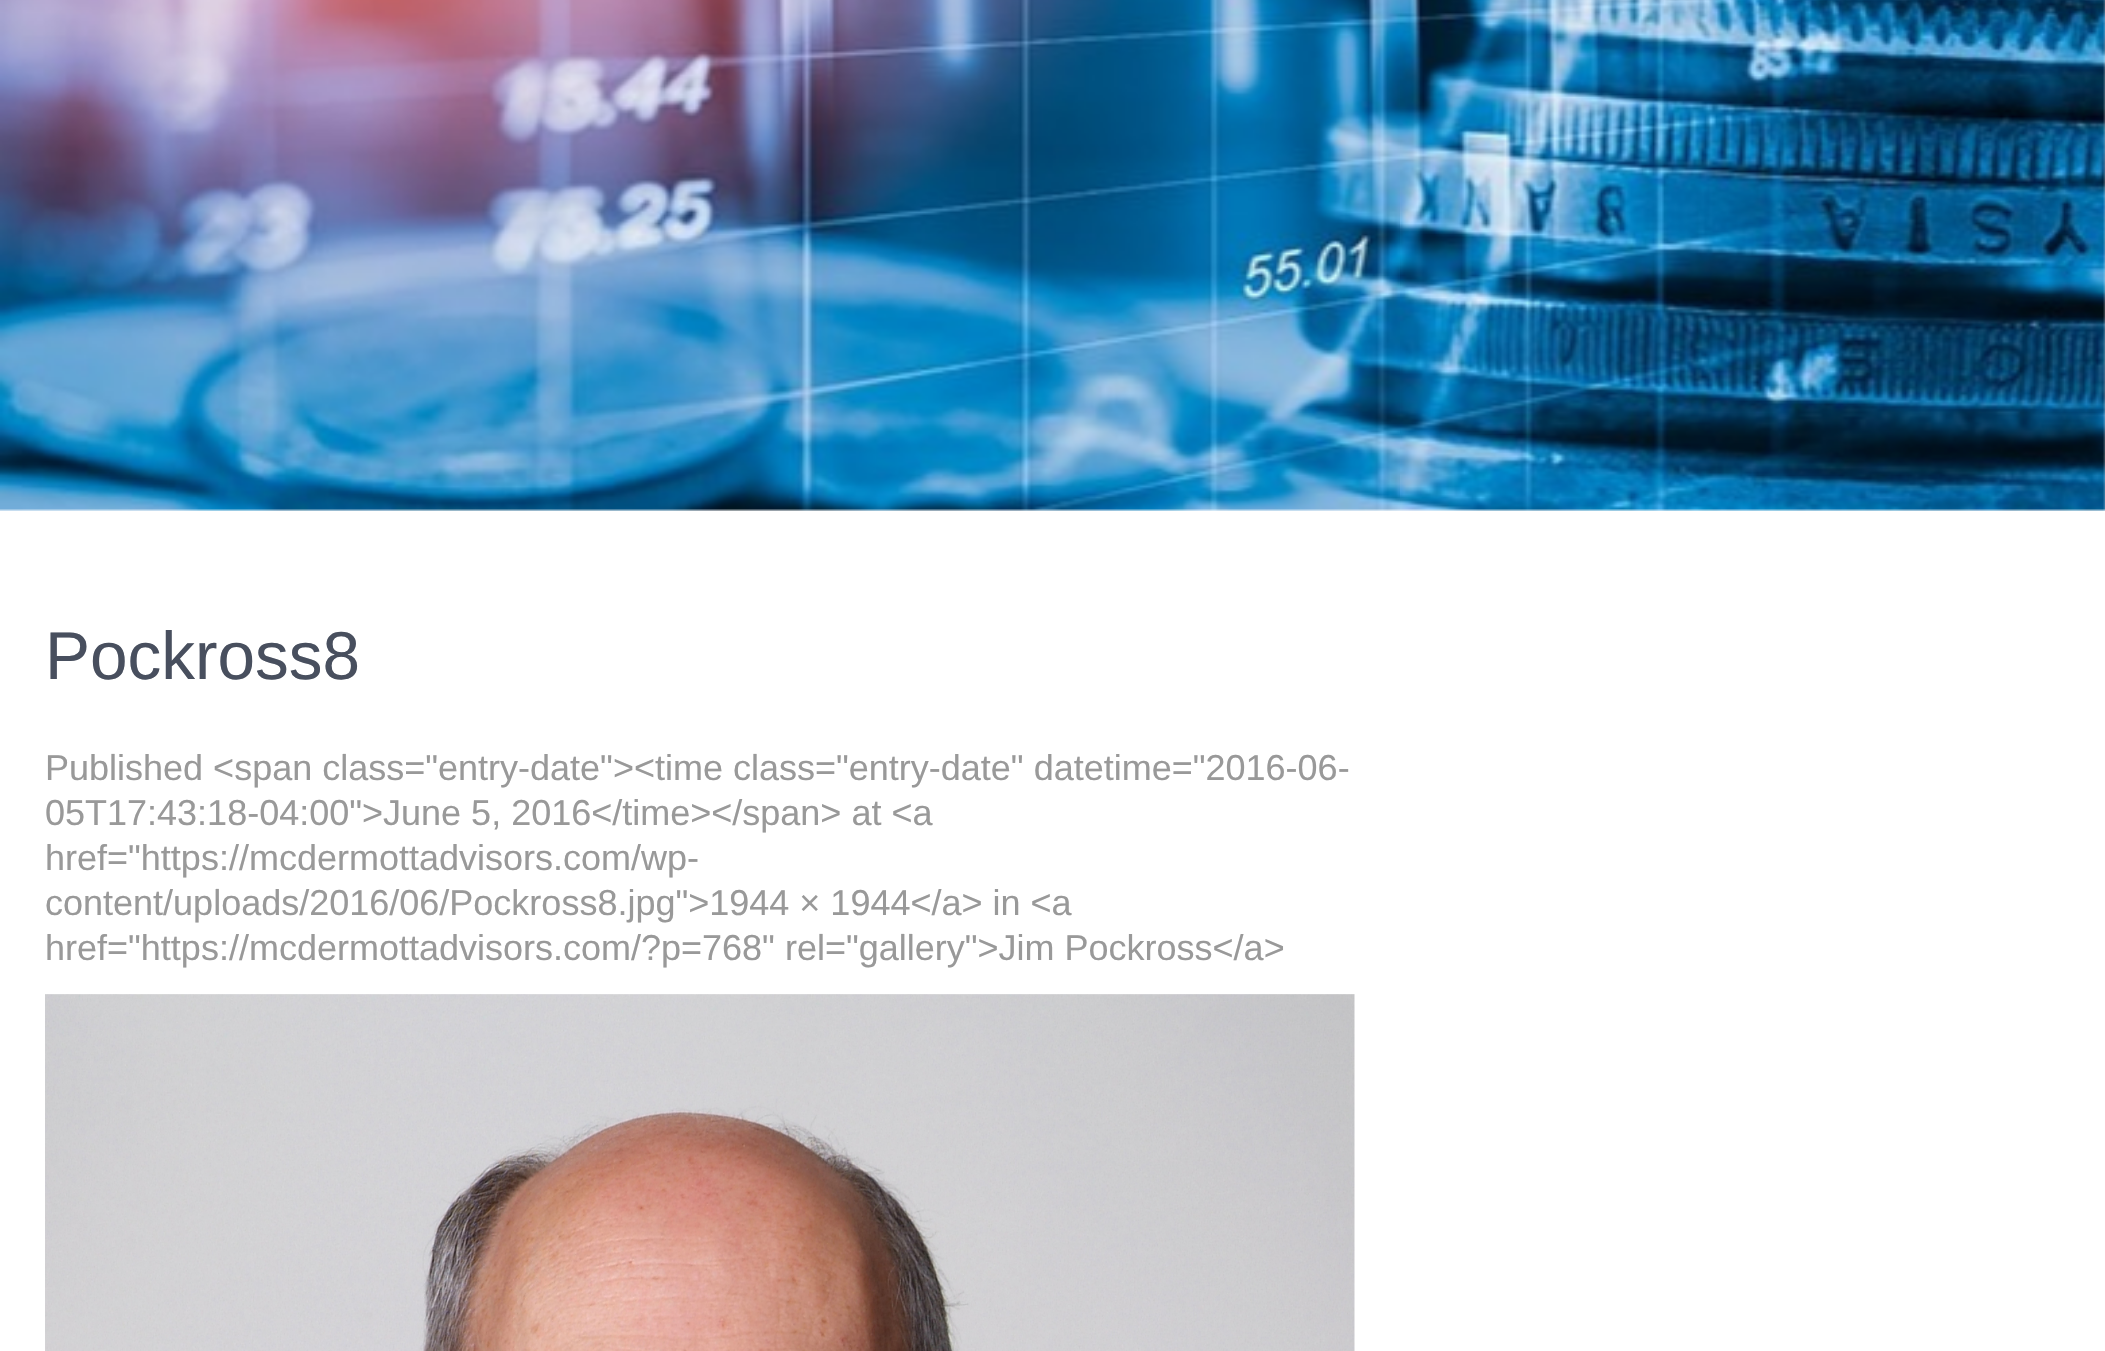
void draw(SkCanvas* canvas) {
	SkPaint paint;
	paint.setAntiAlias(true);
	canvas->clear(0xffffffff);
	canvas->drawImageRect(SkImages::DeferredFromEncodedData(SkData::MakeFromFileName("img1.png")), SkRect::MakeXYWH(0, 0, 2105, 511), SkSamplingOptions());
	SkFont f1(fontMgr->matchFamilyStyle("Liberation Sans", SkFontStyle::Normal()), 67.5);
	f1.setSubpixel(true);
	paint.setColor(0xff484f5e);
	canvas->drawString("Pockross8", 45, 679, f1, paint);
	SkFont f2(fontMgr->matchFamilyStyle("Liberation Sans", SkFontStyle::Normal()), 36);
	f2.setSubpixel(true);
	paint.setColor(0xff999999);
	canvas->drawString("Published <span class=\"entry-date\"><time class=\"entry-date\" datetime=\"2016-06-", 45, 780, f2, paint);
	canvas->drawString("05T17:43:18-04:00\">June 5, 2016</time></span> at <a", 45, 825, f2, paint);
	canvas->drawString("href=\"https://mcdermottadvisors.com/wp-", 45, 870, f2, paint);
	canvas->drawString("content/uploads/2016/06/Pockross8.jpg\">1944 × 1944</a> in <a", 45, 915, f2, paint);
	canvas->drawString("href=\"https://mcdermottadvisors.com/?p=768\" rel=\"gallery\">Jim Pockross</a>", 45, 960, f2, paint);
	canvas->drawImageRect(SkImages::DeferredFromEncodedData(SkData::MakeFromFileName("img2.png")), SkRect::MakeXYWH(45, 994, 1310, 357), SkSamplingOptions());
}
